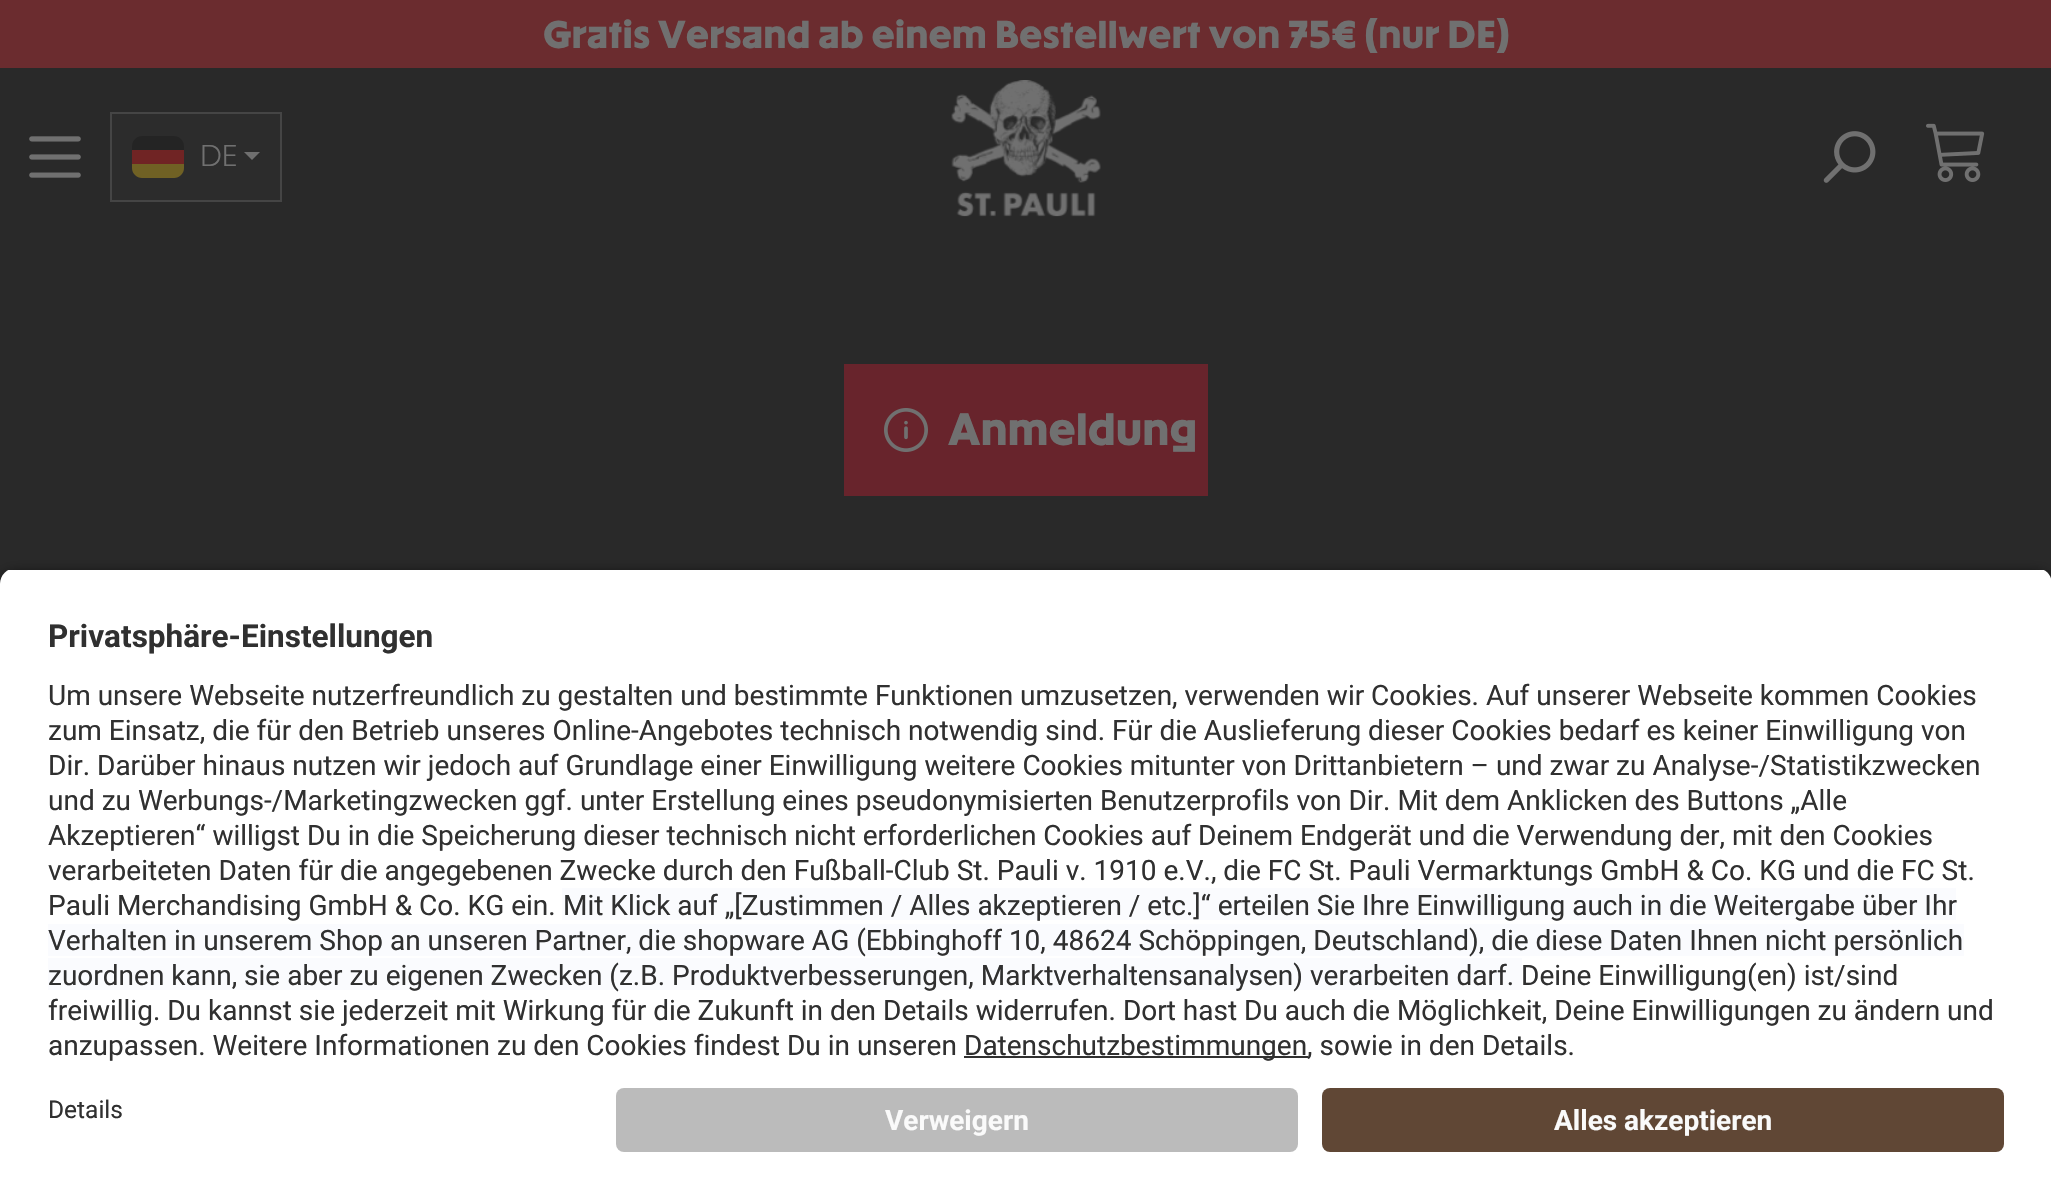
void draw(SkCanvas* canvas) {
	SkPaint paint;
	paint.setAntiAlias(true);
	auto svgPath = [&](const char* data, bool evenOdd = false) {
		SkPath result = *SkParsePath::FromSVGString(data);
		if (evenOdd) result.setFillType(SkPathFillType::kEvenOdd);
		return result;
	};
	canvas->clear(0xff292929);
	paint.setColor(0xff6b2c2f);
	canvas->drawRect(SkRect::MakeXYWH(0, 0, 2051, 68), paint);
	SkFont f1(fontMgr->matchFamilyStyle("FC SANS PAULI", SkFontStyle::Bold()), 36);
	f1.setSubpixel(true);
	paint.setColor(0xff707070);
	canvas->drawString("Gratis Versand ab einem Bestellwert von 75€ (nur DE)", 543, 48, f1, paint);
	canvas->drawImageRect(SkImages::DeferredFromEncodedData(SkData::MakeFromFileName("img1.png")), SkRect::MakeXYWH(29, 136, 52, 42), SkSamplingOptions());
	paint.setColor(0xff2c2c2c);
	canvas->drawRect(SkRect::MakeXYWH(111, 113, 170, 88), paint);
	paint.setStroke(true);
	paint.setStrokeWidth(2);
	paint.setColor(0xff454545);
	canvas->drawRect(SkRect::MakeXYWH(111, 113, 170, 88), paint);
	paint.setStroke(false);
	paint.setColor(0xff242424);
	canvas->drawPath(svgPath("M142 136H174C179.5 136 184 140.5 184 146V150H132V146C132 140.5 136.5 136 142 136Z"), paint);
	paint.setColor(0xff702424);
	canvas->drawRect(SkRect::MakeXYWH(132, 150, 52, 14), paint);
	paint.setColor(0xff706124);
	canvas->drawPath(svgPath("M132 164H184V168C184 173.5 179.5 178 174 178H142C136.5 178 132 173.5 132 168Z"), paint);
	SkFont f2(fontMgr->matchFamilyStyle("FC SANS PAULI", SkFontStyle(300, SkFontStyle::kNormal_Width, SkFontStyle::kUpright_Slant)), 28);
	f2.setSubpixel(true);
	paint.setColor(0xff707070);
	canvas->drawString("DE", 200, 166, f2, paint);
	canvas->drawPath(svgPath("M244 152H260L252 160Z"), paint);
	canvas->drawImageRect(SkImages::DeferredFromEncodedData(SkData::MakeFromFileName("img2.png")), SkRect::MakeXYWH(951, 80, 150, 137), SkSamplingOptions());
	canvas->drawImageRect(SkImages::DeferredFromEncodedData(SkData::MakeFromFileName("img3.png")), SkRect::MakeXYWH(1823, 131, 53, 52), SkSamplingOptions());
	canvas->drawImageRect(SkImages::DeferredFromEncodedData(SkData::MakeFromFileName("img4.png")), SkRect::MakeXYWH(1926, 123, 59, 59), SkSamplingOptions());
	paint.setColor(0xff68242c);
	canvas->drawRect(SkRect::MakeXYWH(844, 364, 364, 132), paint);
	canvas->drawImageRect(SkImages::DeferredFromEncodedData(SkData::MakeFromFileName("img5.png")), SkRect::MakeXYWH(884, 408, 44, 44), SkSamplingOptions());
	SkFont f3(fontMgr->matchFamilyStyle("FC SANS PAULI", SkFontStyle::Bold()), 42);
	f3.setSubpixel(true);
	paint.setColor(0xff707070);
	canvas->drawString("Anmeldung", 948, 445, f3, paint);
	paint.setColor(0xcc000000);
	paint.setMaskFilter(SkMaskFilter::MakeBlur(kNormal_SkBlurStyle, 7));
	canvas->drawRoundRect(SkRect::MakeXYWH(0, 574, 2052, 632), 16, 16, paint);
	paint.setMaskFilter(nullptr);
	canvas->save();
	canvas->clipPath(svgPath("M16 568H2036C2045 568 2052 575 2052 584V1072H0V584C0 575 7 568 16 568Z"), true);
	paint.setColor(0xffffffff);
	canvas->drawRect(SkRect::MakeXYWH(0, 570, 2051, 502), paint);
	canvas->restore();
	SkFont f4(fontMgr->matchFamilyStyle("Roboto", SkFontStyle::Bold()), 31.5);
	f4.setSubpixel(true);
	paint.setColor(0xff303030);
	canvas->drawString("Privatsphäre-Einstellungen", 48, 647, f4, paint);
	SkFont f5(fontMgr->matchFamilyStyle("Roboto", SkFontStyle::Normal()), 28);
	f5.setSubpixel(true);
	canvas->drawString("Um unsere Webseite nutzerfreundlich zu gestalten und bestimmte Funktionen umzusetzen, verwenden wir Cookies. Auf unserer Webseite kommen Cookies", 48, 705, f5, paint);
	canvas->drawString("zum Einsatz, die für den Betrieb unseres Online-Angebotes technisch notwendig sind. Für die Auslieferung dieser Cookies bedarf es keiner Einwilligung von", 48, 740, f5, paint);
	canvas->drawString("Dir. Darüber hinaus nutzen wir jedoch auf Grundlage einer Einwilligung weitere Cookies mitunter von Drittanbietern – und zwar zu Analyse-/Statistikzwecken", 48, 775, f5, paint);
	canvas->drawString("und zu Werbungs-/Marketingzwecken ggf. unter Erstellung eines pseudonymisierten Benutzerprofils von Dir. Mit dem Anklicken des Buttons „Alle", 48, 810, f5, paint);
	canvas->drawString("Akzeptieren“ willigst Du in die Speicherung dieser technisch nicht erforderlichen Cookies auf Deinem Endgerät und die Verwendung der, mit den Cookies", 48, 845, f5, paint);
	canvas->drawString("verarbeiteten Daten für die angegebenen Zwecke durch den Fußball-Club St. Pauli v. 1910 e.V., die FC St. Pauli Vermarktungs GmbH & Co. KG und die FC St.", 48, 880, f5, paint);
	canvas->drawString("Pauli Merchandising GmbH & Co. KG ein.", 48, 915, f5, paint);
	paint.setColor(0xfffafbfe);
	canvas->drawRect(SkRect::MakeXYWH(562, 888, 1394, 32), paint);
	paint.setColor(0xff303030);
	canvas->drawString("Mit Klick auf „[Zustimmen / Alles akzeptieren / etc.]“ erteilen Sie Ihre Einwilligung auch in die Weitergabe über Ihr", 563, 915, f5, paint);
	paint.setColor(0xfffafbfe);
	canvas->drawRect(SkRect::MakeXYWH(48, 924, 1916, 32), paint);
	paint.setColor(0xff303030);
	canvas->drawString("Verhalten in unserem Shop an unseren Partner, die shopware AG (Ebbinghoff 10, 48624 Schöppingen, Deutschland), die diese Daten Ihnen nicht persönlich", 48, 950, f5, paint);
	paint.setColor(0xfffafbfe);
	canvas->drawRect(SkRect::MakeXYWH(48, 958, 1474, 32), paint);
	paint.setColor(0xff303030);
	canvas->drawString("zuordnen kann, sie aber zu eigenen Zwecken (z.B. Produktverbesserungen, Marktverhaltensanalysen) verarbeiten darf.", 48, 985, f5, paint);
	canvas->drawString("Deine Einwilligung(en) ist/sind", 1521, 985, f5, paint);
	canvas->drawString("freiwillig. Du kannst sie jederzeit mit Wirkung für die Zukunft in den Details widerrufen. Dort hast Du auch die Möglichkeit, Deine Einwilligungen zu ändern und", 48, 1020, f5, paint);
	canvas->drawString("anzupassen. Weitere Informationen zu den Cookies findest Du in unseren", 48, 1055, f5, paint);
	canvas->drawRect(SkRect::MakeXYWH(964, 1056, 344, 2), paint);
	canvas->drawString("Datenschutzbestimmungen, sowie in den Details.", 964, 1055, f5, paint);
	paint.setColor(0xffffffff);
	canvas->drawRect(SkRect::MakeXYWH(0, 1072, 2051, 127), paint);
	SkFont f6(fontMgr->matchFamilyStyle("Roboto", SkFontStyle::Normal()), 24.5);
	f6.setSubpixel(true);
	paint.setColor(0xff303030);
	canvas->drawString("Details", 48, 1118, f6, paint);
	paint.setColor(0xffbbbbbb);
	canvas->drawRoundRect(SkRect::MakeXYWH(616, 1088, 682, 64), 8, 8, paint);
	SkFont f7(fontMgr->matchFamilyStyle("Roboto", SkFontStyle::Bold()), 28);
	f7.setSubpixel(true);
	paint.setColor(0xfffafafa);
	canvas->drawString("Verweigern", 885, 1130, f7, paint);
	paint.setColor(0xff604735);
	canvas->drawRoundRect(SkRect::MakeXYWH(1322, 1088, 682, 64), 8, 8, paint);
	paint.setColor(0xfffafafa);
	canvas->drawString("Alles akzeptieren", 1554, 1130, f7, paint);
}
